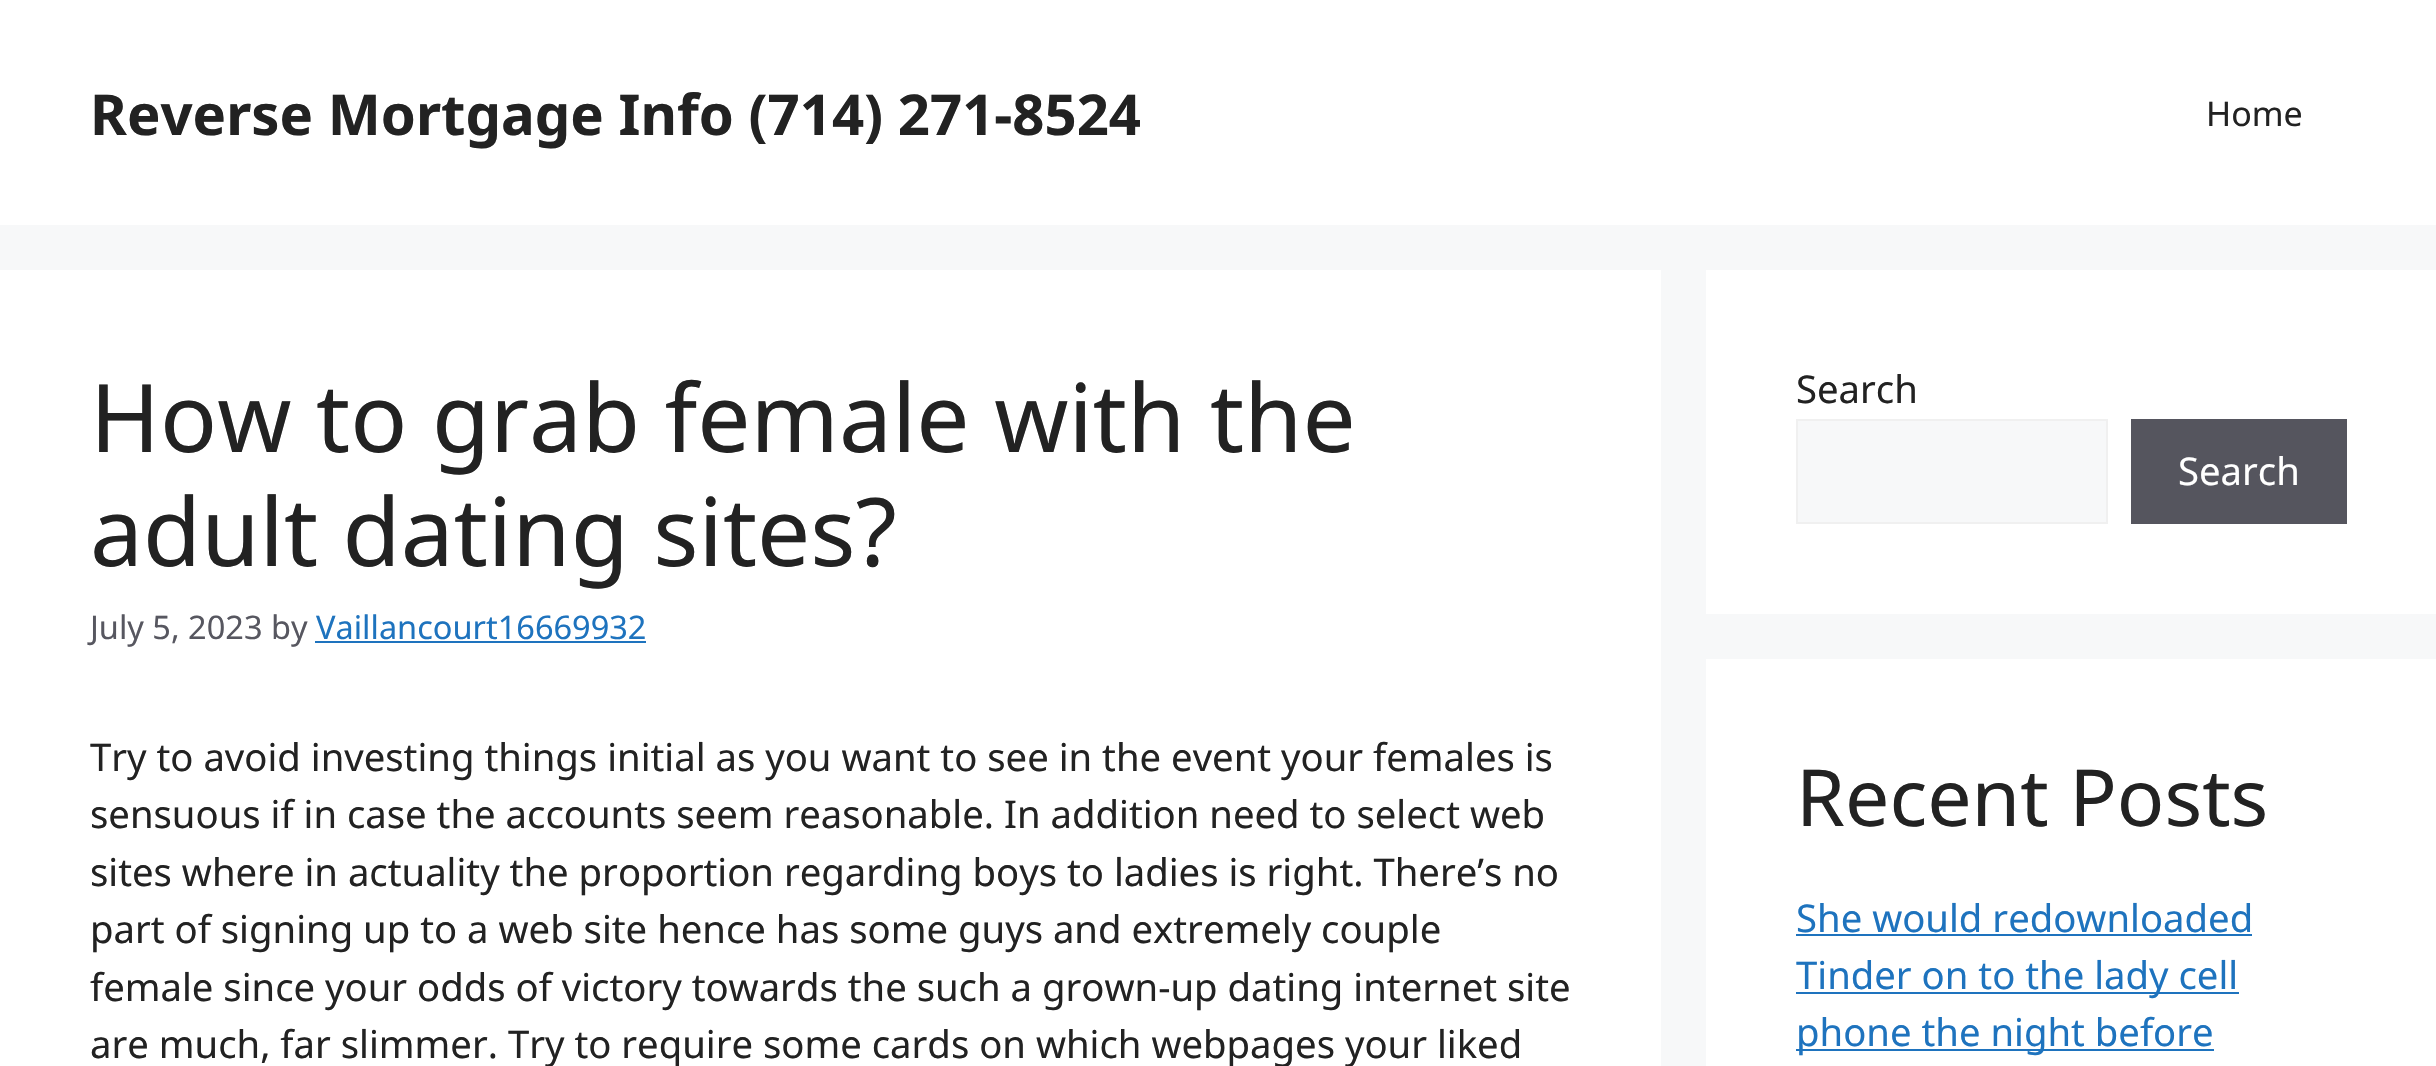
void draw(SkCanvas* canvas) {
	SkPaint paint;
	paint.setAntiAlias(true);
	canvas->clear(0xfff7f8f9);
	paint.setColor(0xffffffff);
	canvas->drawRect(SkRect::MakeXYWH(0, 0, 2436, 225), paint);
	SkFont f1(fontMgr->matchFamilyStyle("Noto Sans", SkFontStyle::Bold()), 56.25);
	f1.setSubpixel(true);
	paint.setColor(0xff222222);
	canvas->drawString("Reverse Mortgage Info (714) 271-8524", 90, 135, f1, paint);
	SkFont f2(fontMgr->matchFamilyStyle("Noto Sans", SkFontStyle::Normal()), 34);
	f2.setSubpixel(true);
	canvas->drawString("Home", 2206, 126, f2, paint);
	paint.setColor(0xffffffff);
	canvas->drawRect(SkRect::MakeXYWH(0, 270, 1661, 796), paint);
	SkFont f3(fontMgr->matchFamilyStyle("Noto Sans", SkFontStyle::Normal()), 94.5);
	f3.setSubpixel(true);
	paint.setColor(0xff222222);
	canvas->drawString("How to grab female with the", 90, 452, f3, paint);
	canvas->drawString("adult dating sites?", 90, 566, f3, paint);
	SkFont f4(fontMgr->matchFamilyStyle("Noto Sans", SkFontStyle::Normal()), 32.5);
	f4.setSubpixel(true);
	paint.setColor(0xff575760);
	canvas->drawString("July 5, 2023 by", 90, 639, f4, paint);
	paint.setColor(0xff1e73be);
	canvas->drawString("Vaillancourt16669932", 316, 639, f4, paint);
	canvas->drawRect(SkRect::MakeXYWH(315, 641, 331, 2), paint);
	SkFont f5(fontMgr->matchFamilyStyle("Noto Sans", SkFontStyle::Normal()), 38.25);
	f5.setSubpixel(true);
	paint.setColor(0xff222222);
	canvas->drawString("Try to avoid investing things initial as you want to see in the event your females is", 90, 771, f5, paint);
	canvas->drawString("sensuous if in case the accounts seem reasonable. In addition need to select web", 90, 828, f5, paint);
	canvas->drawString("sites where in actuality the proportion regarding boys to ladies is right. There’s no", 90, 886, f5, paint);
	canvas->drawString("part of signing up to a web site hence has some guys and extremely couple", 90, 943, f5, paint);
	canvas->drawString("female since your odds of victory towards the such a grown-up dating internet site", 90, 1001, f5, paint);
	canvas->drawString("are much, far slimmer. Try to require some cards on which webpages your liked", 90, 1058, f5, paint);
	paint.setColor(0xffffffff);
	canvas->drawRect(SkRect::MakeXYWH(1706, 270, 730, 344), paint);
	paint.setColor(0xff222222);
	canvas->drawString("Search", 1796, 403, f5, paint);
	paint.setColor(0xfff7f8f9);
	canvas->drawRect(SkRect::MakeXYWH(1797, 420, 310, 103), paint);
	paint.setStroke(true);
	paint.setStrokeWidth(2);
	paint.setColor(0xfff0f0f0);
	canvas->drawRect(SkRect::MakeXYWH(1797, 420, 310, 103), paint);
	paint.setStroke(false);
	paint.setColor(0xff55555e);
	canvas->drawRect(SkRect::MakeXYWH(2131, 419, 216, 105), paint);
	paint.setColor(0xffffffff);
	canvas->drawString("Search", 2178, 485, f5, paint);
	canvas->drawRect(SkRect::MakeXYWH(1706, 659, 730, 407), paint);
	SkFont f6(fontMgr->matchFamilyStyle("Noto Sans", SkFontStyle::Normal()), 78.75);
	f6.setSubpixel(true);
	paint.setColor(0xff222222);
	canvas->drawString("Recent Posts", 1796, 826, f6, paint);
	paint.setColor(0xff1e73be);
	canvas->drawString("She would redownloaded", 1796, 932, f5, paint);
	canvas->drawRect(SkRect::MakeXYWH(1796, 934, 456, 2), paint);
	canvas->drawRect(SkRect::MakeXYWH(1796, 992, 443, 2), paint);
	canvas->drawString("Tinder on to the lady cell", 1796, 989, f5, paint);
	canvas->drawRect(SkRect::MakeXYWH(1796, 1049, 418, 2), paint);
	canvas->drawString("phone the night before", 1796, 1046, f5, paint);
}
